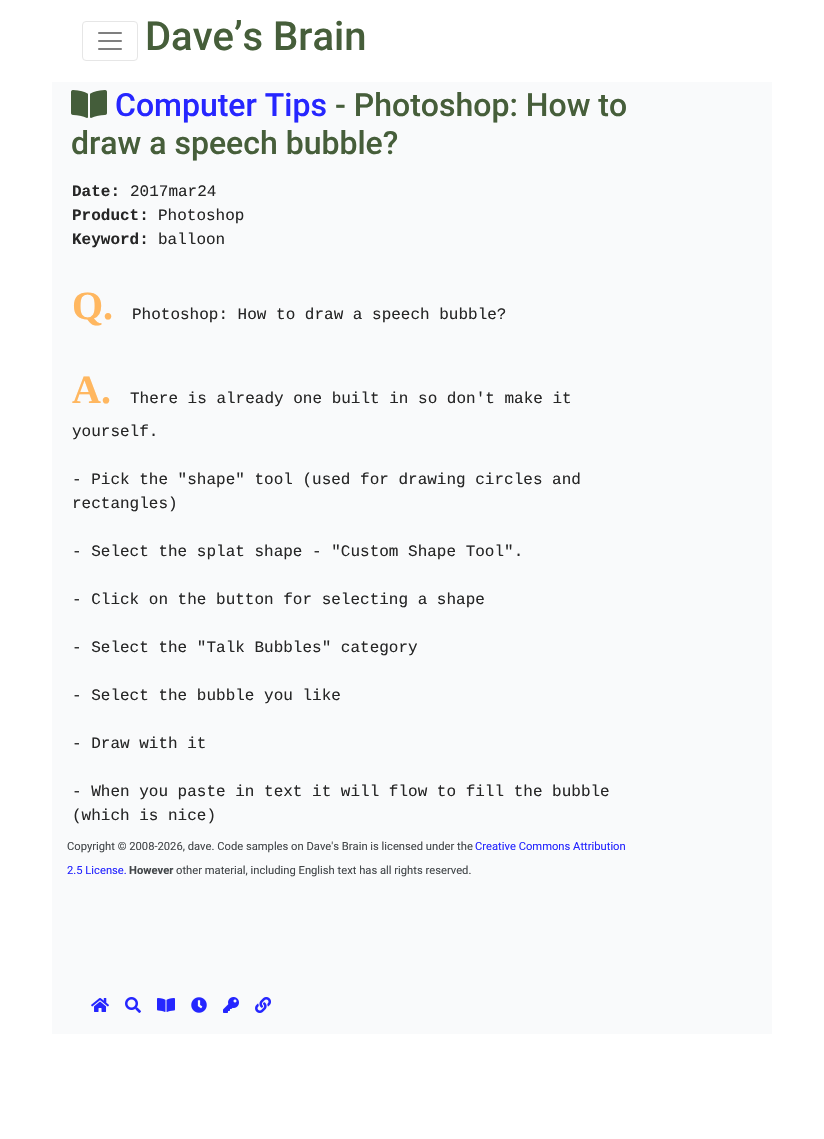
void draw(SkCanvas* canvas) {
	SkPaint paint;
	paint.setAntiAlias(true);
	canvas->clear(0xffffffff);
	paint.setStroke(true);
	paint.setStrokeWidth(1);
	paint.setColor(0xffe6e6e6);
	canvas->drawRoundRect(SkRect::MakeXYWH(82.5, 21.5, 55, 39), 3.5, 3.5, paint);
	canvas->drawImageRect(SkImages::DeferredFromEncodedData(SkData::MakeFromFileName("img1.png")), SkRect::MakeXYWH(98, 32, 24, 18), SkSamplingOptions());
	SkFont f1(fontMgr->matchFamilyStyle("Roboto", SkFontStyle(500, SkFontStyle::kNormal_Width, SkFontStyle::kUpright_Slant)), 40);
	f1.setSubpixel(true);
	paint.setStroke(false);
	paint.setColor(0xff465e3a);
	canvas->drawString("Dave’s Brain", 145, 50, f1, paint);
	paint.setColor(0xfff9fafb);
	canvas->drawRect(SkRect::MakeXYWH(52, 82, 720, 952), paint);
	canvas->drawImageRect(SkImages::DeferredFromEncodedData(SkData::MakeFromFileName("img2.png")), SkRect::MakeXYWH(71, 90, 36, 28), SkSamplingOptions());
	SkFont f2(fontMgr->matchFamilyStyle("Roboto", SkFontStyle(500, SkFontStyle::kNormal_Width, SkFontStyle::kUpright_Slant)), 32);
	f2.setSubpixel(true);
	paint.setColor(0xff2626ff);
	canvas->drawString("Computer Tips", 115, 116, f2, paint);
	paint.setColor(0xff465e3a);
	canvas->drawString("- Photoshop: How to", 335, 116, f2, paint);
	canvas->drawString("draw a speech bubble?", 71, 154, f2, paint);
	SkFont f3(fontMgr->matchFamilyStyle("Liberation Mono", SkFontStyle::Bold()), 16);
	f3.setSubpixel(true);
	paint.setColor(0xff262626);
	canvas->drawString("Date:", 72, 196, f3, paint);
	SkFont f4(fontMgr->matchFamilyStyle("Liberation Mono", SkFontStyle::Normal()), 16);
	f4.setSubpixel(true);
	canvas->drawString("2017mar24", 130, 196, f4, paint);
	canvas->drawString("Product:", 72, 220, f3, paint);
	canvas->drawString("Photoshop", 158, 220, f4, paint);
	canvas->drawString("Keyword:", 72, 244, f3, paint);
	canvas->drawString("balloon", 158, 244, f4, paint);
	SkFont f5(fontMgr->matchFamilyStyle("Liberation Serif", SkFontStyle::Bold()), 40);
	f5.setSubpixel(true);
	paint.setColor(0xffffb760);
	canvas->drawString("Q.", 72, 319, f5, paint);
	paint.setColor(0xff262626);
	canvas->drawString("Photoshop: How to draw a speech bubble?", 132, 319, f4, paint);
	paint.setColor(0xffffb760);
	canvas->drawString("A.", 72, 403, f5, paint);
	paint.setColor(0xff262626);
	canvas->drawString("There is already one built in so don't make it", 130, 403, f4, paint);
	canvas->drawString("yourself.", 72, 436, f4, paint);
	canvas->drawString("- Pick the \"shape\" tool (used for drawing circles and", 72, 484, f4, paint);
	canvas->drawString("rectangles)", 72, 508, f4, paint);
	canvas->drawString("- Select the splat shape - \"Custom Shape Tool\".", 72, 556, f4, paint);
	canvas->drawString("- Click on the button for selecting a shape", 72, 604, f4, paint);
	canvas->drawString("- Select the \"Talk Bubbles\" category", 72, 652, f4, paint);
	canvas->drawString("- Select the bubble you like", 72, 700, f4, paint);
	canvas->drawString("- Draw with it", 72, 748, f4, paint);
	canvas->drawString("- When you paste in text it will flow to fill the bubble", 72, 796, f4, paint);
	canvas->drawString("(which is nice)", 72, 820, f4, paint);
	SkFont f6(fontMgr->matchFamilyStyle("Roboto", SkFontStyle::Normal()), 11.2);
	f6.setSubpixel(true);
	paint.setColor(0xff424649);
	canvas->drawString("Copyright © 2008-2026, dave. Code samples on Dave's Brain is licensed under the", 67, 850, f6, paint);
	paint.setColor(0xff2626ff);
	canvas->drawString("Creative Commons Attribution", 475, 850, f6, paint);
	canvas->drawString("2.5 License.", 67, 874, f6, paint);
	SkFont f7(fontMgr->matchFamilyStyle("Roboto", SkFontStyle::Bold()), 11.2);
	f7.setSubpixel(true);
	paint.setColor(0xff424649);
	canvas->drawString("However", 129, 874, f7, paint);
	canvas->drawString("other material, including English text has all rights reserved.", 176, 874, f6, paint);
	canvas->drawImageRect(SkImages::DeferredFromEncodedData(SkData::MakeFromFileName("img3.png")), SkRect::MakeXYWH(91, 998, 18, 14), SkSamplingOptions());
	canvas->drawImageRect(SkImages::DeferredFromEncodedData(SkData::MakeFromFileName("img4.png")), SkRect::MakeXYWH(125, 997, 16, 16), SkSamplingOptions());
	canvas->drawImageRect(SkImages::DeferredFromEncodedData(SkData::MakeFromFileName("img5.png")), SkRect::MakeXYWH(157, 998, 18, 14), SkSamplingOptions());
	canvas->drawImageRect(SkImages::DeferredFromEncodedData(SkData::MakeFromFileName("img6.png")), SkRect::MakeXYWH(191, 997, 16, 16), SkSamplingOptions());
	canvas->drawImageRect(SkImages::DeferredFromEncodedData(SkData::MakeFromFileName("img7.png")), SkRect::MakeXYWH(223, 997, 16, 16), SkSamplingOptions());
	canvas->drawImageRect(SkImages::DeferredFromEncodedData(SkData::MakeFromFileName("img8.png")), SkRect::MakeXYWH(255, 997, 16, 16), SkSamplingOptions());
}
